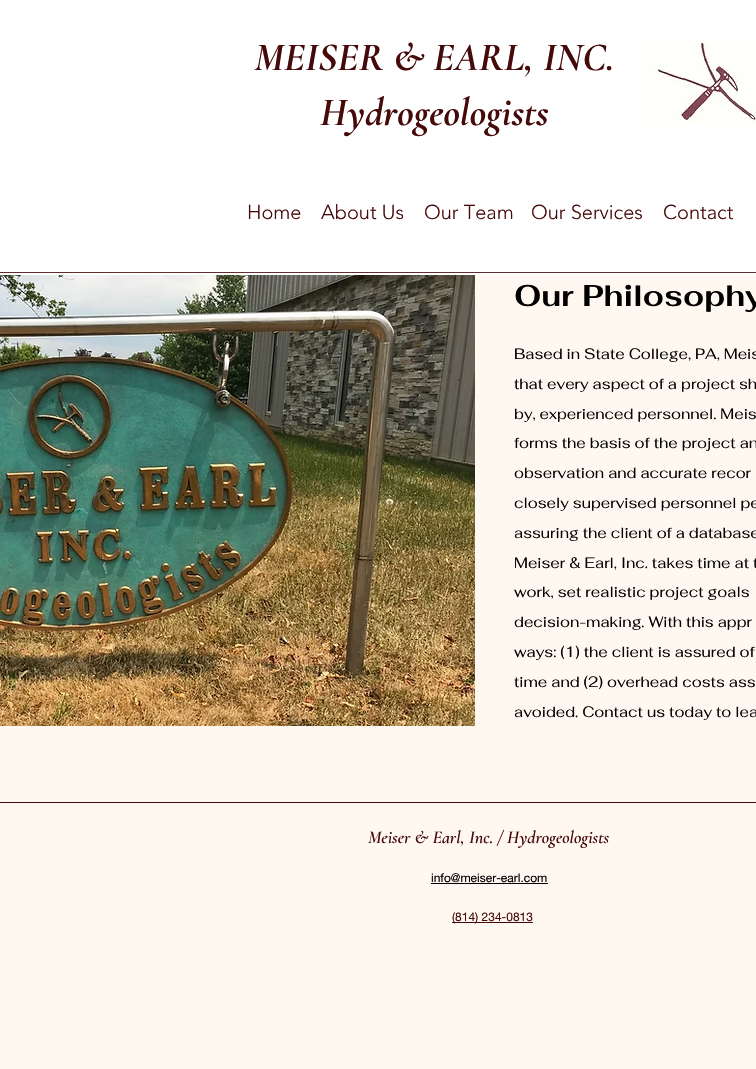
void draw(SkCanvas* canvas) {
	SkPaint paint;
	paint.setAntiAlias(true);
	canvas->clear(0xfffff8f1);
	paint.setColor(0xffffffff);
	canvas->drawRect(SkRect::MakeXYWH(0, 0, 756, 275), paint);
	SkFont f1(fontMgr->matchFamilyStyle("Cormorant Garamond", SkFontStyle::BoldItalic()), 40);
	f1.setSubpixel(true);
	paint.setColor(0xff460a0a);
	canvas->drawString("MEISER & EARL, INC.", 254, 70, f1, paint);
	canvas->drawString("Hydrogeologists", 320, 125, f1, paint);
	canvas->drawImageRect(SkImages::DeferredFromEncodedData(SkData::MakeFromFileName("img1.png")), SkRect::MakeXYWH(643, 42, 113, 83), SkSamplingOptions());
	SkFont f2(fontMgr->matchFamilyStyle("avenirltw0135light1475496", SkFontStyle(300, SkFontStyle::kNormal_Width, SkFontStyle::kUpright_Slant)), 20);
	f2.setSubpixel(true);
	canvas->drawString("Home", 247, 219, f2, paint);
	canvas->drawString("About Us", 321, 219, f2, paint);
	canvas->drawString("Our Team", 424, 219, f2, paint);
	canvas->drawString("Our Services", 531, 219, f2, paint);
	canvas->drawString("Contact", 663, 219, f2, paint);
	paint.setColor(0xff622f2f);
	canvas->drawRect(SkRect::MakeXYWH(0, 272, 756, 1), paint);
	canvas->drawImageRect(SkImages::DeferredFromEncodedData(SkData::MakeFromFileName("img2.png")), SkRect::MakeXYWH(0, 275, 475, 451), SkSamplingOptions());
	SkFont f3(fontMgr->matchFamilyStyle("Fahkwang", SkFontStyle::Bold()), 30);
	f3.setSubpixel(true);
	paint.setColor(0xff000000);
	canvas->drawString("Our Philosophy", 514, 306, f3, paint);
	SkFont f4(fontMgr->matchFamilyStyle("Fahkwang", SkFontStyle::Normal()), 15);
	f4.setSubpixel(true);
	canvas->drawString("Based in State College, PA, Meis", 514, 359, f4, paint);
	canvas->drawString("that every aspect of a project sh", 514, 389, f4, paint);
	canvas->drawString("by, experienced personnel. Meis", 514, 419, f4, paint);
	canvas->drawString("forms the basis of the project an", 514, 448, f4, paint);
	canvas->drawString("observation and accurate recor", 514, 478, f4, paint);
	canvas->drawString("closely supervised personnel pe", 514, 508, f4, paint);
	canvas->drawString("assuring the client of a database", 514, 538, f4, paint);
	canvas->drawString("Meiser & Earl, Inc. takes time at t", 514, 568, f4, paint);
	canvas->drawString("work, set realistic project goals", 514, 597, f4, paint);
	canvas->drawString("decision-making. With this appr", 514, 627, f4, paint);
	canvas->drawString("ways: (1) the client is assured of", 514, 657, f4, paint);
	canvas->drawString("time and (2) overhead costs ass", 514, 687, f4, paint);
	canvas->drawString("avoided. Contact us today to lea", 514, 717, f4, paint);
	paint.setColor(0xff460a0a);
	canvas->drawRect(SkRect::MakeXYWH(0, 802, 756, 1), paint);
	SkFont f5(fontMgr->matchFamilyStyle("Cormorant Garamond", SkFontStyle(600, SkFontStyle::kNormal_Width, SkFontStyle::kItalic_Slant)), 18);
	f5.setSubpixel(true);
	canvas->drawString("Meiser & Earl, Inc. / Hydrogeologists", 368, 843, f5, paint);
	SkFont f6(fontMgr->matchFamilyStyle("helvetica neue", SkFontStyle::Normal()), 12);
	f6.setSubpixel(true);
	paint.setColor(0xff000000);
	canvas->drawString("info@meiser-earl.com", 431, 882, f6, paint);
	canvas->drawRect(SkRect::MakeXYWH(431, 883, 117, 1), paint);
	paint.setColor(0xff460a0a);
	canvas->drawRect(SkRect::MakeXYWH(452, 922, 81, 1), paint);
	canvas->drawString("(814) 234-0813", 452, 921, f6, paint);
}
